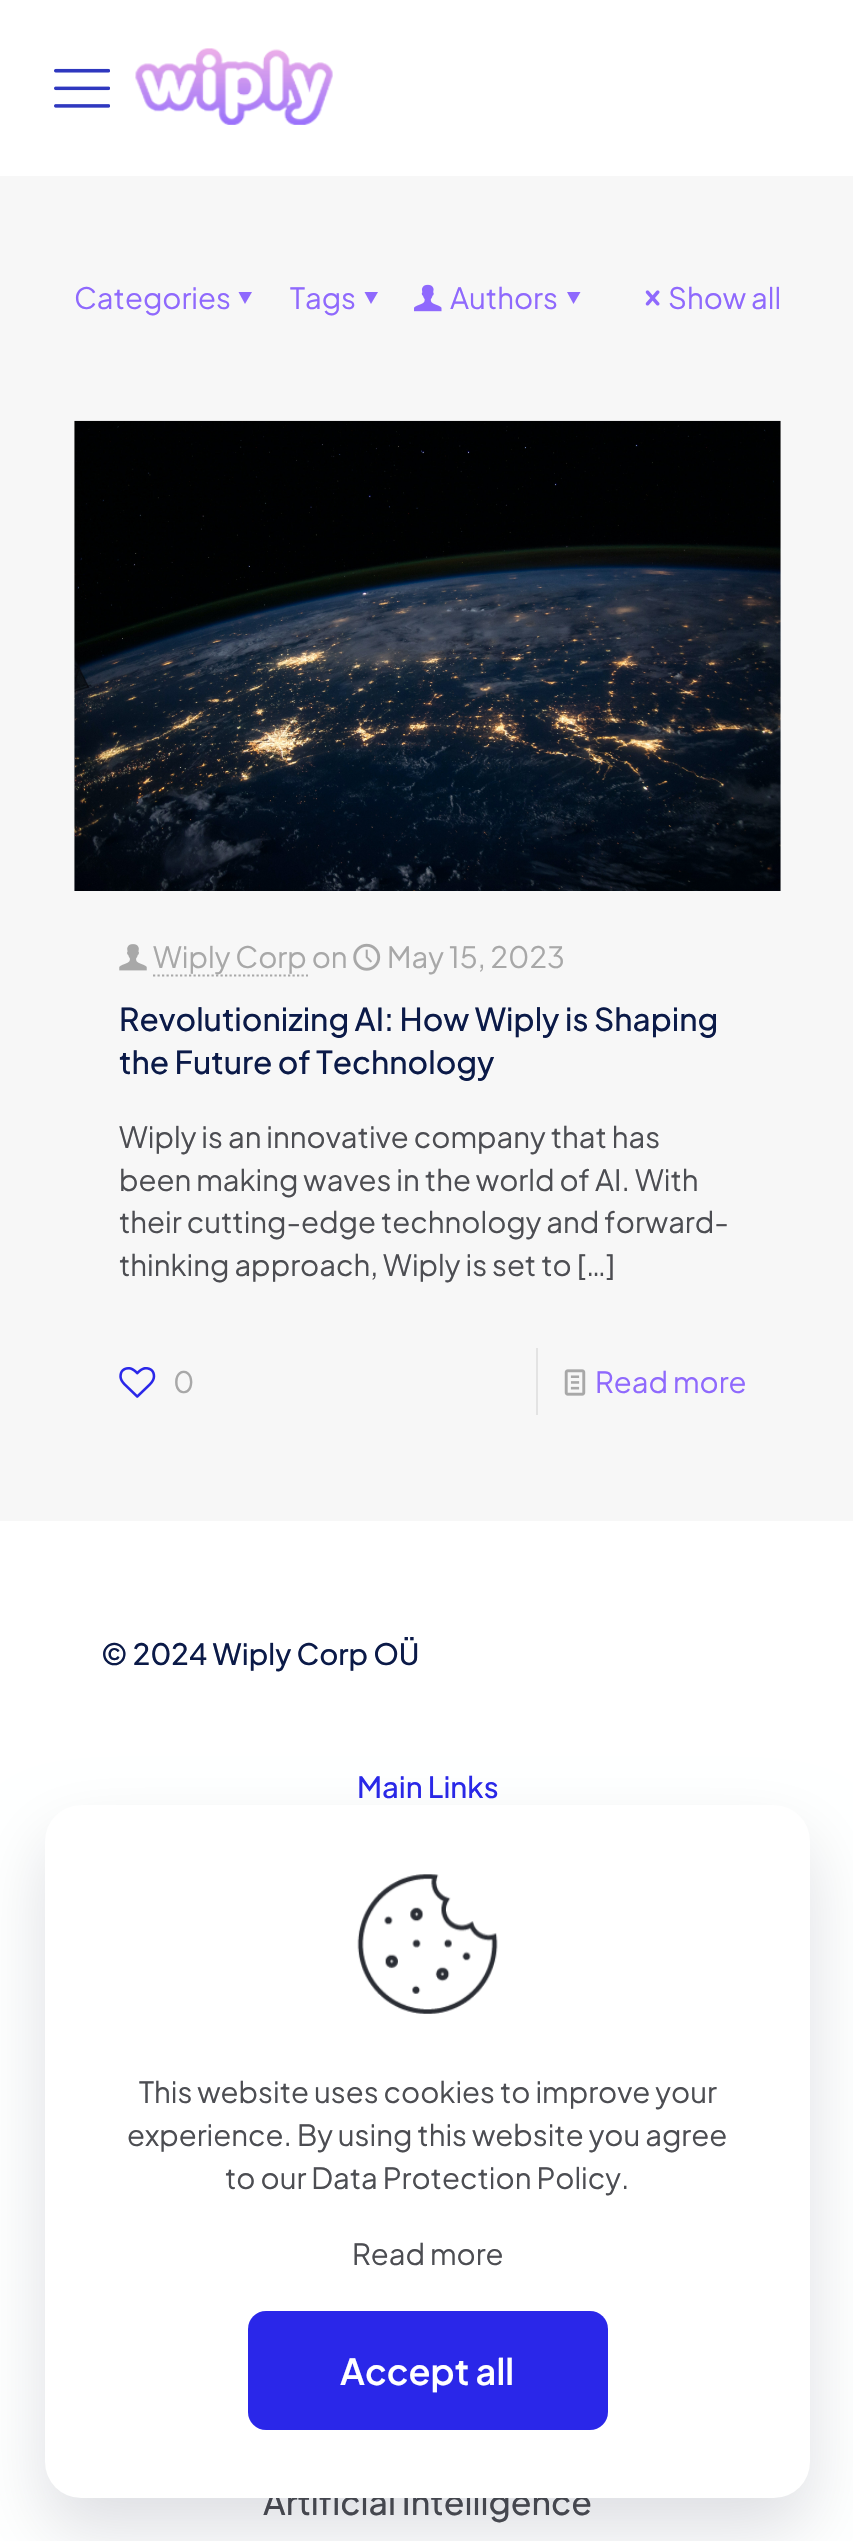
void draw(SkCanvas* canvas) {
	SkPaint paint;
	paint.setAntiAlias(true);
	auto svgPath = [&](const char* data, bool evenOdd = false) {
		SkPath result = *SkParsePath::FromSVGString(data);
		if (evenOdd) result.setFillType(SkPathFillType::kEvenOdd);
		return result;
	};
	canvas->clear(0xfff7f7f7);
	paint.setColor(0xffffffff);
	canvas->drawRect(SkRect::MakeXYWH(0, 0, 853, 176), paint);
	canvas->drawImageRect(SkImages::DeferredFromEncodedData(SkData::MakeFromFileName("img1.png")), SkRect::MakeXYWH(54, 68, 56, 40), SkSamplingOptions());
	canvas->drawImageRect(SkImages::DeferredFromEncodedData(SkData::MakeFromFileName("img2.png")), SkRect::MakeXYWH(135, 48, 198, 77), SkSamplingOptions());
	SkFont f1(fontMgr->matchFamilyStyle("Plus Jakarta Sans", SkFontStyle::Normal()), 29.25);
	f1.setSubpixel(true);
	paint.setColor(0xff8f69fd);
	canvas->drawString("Categories", 74, 309, f1, paint);
	canvas->drawPath(svgPath("M252 292L245 304L238.5 292Z"), paint);
	canvas->drawString("Tags", 290, 309, f1, paint);
	canvas->drawPath(svgPath("M378 292L371 304L364.5 292Z"), paint);
	canvas->drawImageRect(SkImages::DeferredFromEncodedData(SkData::MakeFromFileName("img3.png")), SkRect::MakeXYWH(414, 284, 28, 28), SkSamplingOptions());
	canvas->drawString("Authors", 450, 309, f1, paint);
	canvas->drawPath(svgPath("M580.5 292L573.5 304L567 292Z"), paint);
	canvas->drawImageRect(SkImages::DeferredFromEncodedData(SkData::MakeFromFileName("img4.png")), SkRect::MakeXYWH(645, 290, 15, 16), SkSamplingOptions());
	canvas->drawString("Show all", 668, 309, f1, paint);
	canvas->drawImageRect(SkImages::DeferredFromEncodedData(SkData::MakeFromFileName("img5.png")), SkRect::MakeXYWH(74, 420, 707, 471), SkSamplingOptions());
	canvas->drawImageRect(SkImages::DeferredFromEncodedData(SkData::MakeFromFileName("img6.png")), SkRect::MakeXYWH(119, 944, 28, 27), SkSamplingOptions());
	paint.setStroke(true);
	paint.setStrokeWidth(2.2);
	paint.setColor(0xffa8a8a8);
	paint.setPathEffect(SkDashPathEffect::Make({{2.25f, 2.25f}}, 0));
	canvas->drawPath(svgPath("M153 975.5H308"), paint);
	paint.setPathEffect(nullptr);
	paint.setStroke(false);
	canvas->drawString("Wiply Corp on", 153, 968, f1, paint);
	canvas->drawImageRect(SkImages::DeferredFromEncodedData(SkData::MakeFromFileName("img7.png")), SkRect::MakeXYWH(353, 943, 28, 28), SkSamplingOptions());
	canvas->drawString("May 15, 2023", 387, 968, f1, paint);
	SkFont f2(fontMgr->matchFamilyStyle("Plus Jakarta Sans", SkFontStyle(500, SkFontStyle::kNormal_Width, SkFontStyle::kUpright_Slant)), 31.5);
	f2.setSubpixel(true);
	paint.setColor(0xff0b1a48);
	canvas->drawString("Revolutionizing AI: How Wiply is Shaping", 119, 1031, f2, paint);
	canvas->drawString("the Future of Technology", 119, 1074, f2, paint);
	paint.setColor(0xff4c4d52);
	canvas->drawString("Wiply is an innovative company that has", 119, 1148, f1, paint);
	canvas->drawString("been making waves in the world of AI. With", 119, 1191, f1, paint);
	canvas->drawString("their cutting-edge technology and forward-", 119, 1233, f1, paint);
	canvas->drawString("thinking approach, Wiply is set to […]", 119, 1276, f1, paint);
	canvas->drawImageRect(SkImages::DeferredFromEncodedData(SkData::MakeFromFileName("img8.png")), SkRect::MakeXYWH(119, 1367, 37, 31), SkSamplingOptions());
	paint.setColor(0xffa8a8a8);
	canvas->drawString("0", 173, 1393, f1, paint);
	paint.setColor(0xffe3e3e3);
	canvas->drawRect(SkRect::MakeXYWH(536, 1348, 2, 67), paint);
	canvas->drawImageRect(SkImages::DeferredFromEncodedData(SkData::MakeFromFileName("img9.png")), SkRect::MakeXYWH(564, 1369, 22, 27), SkSamplingOptions());
	paint.setColor(0xff8f69fd);
	canvas->drawString("Read more", 595, 1393, f1, paint);
	paint.setColor(0xffffffff);
	canvas->drawRect(SkRect::MakeXYWH(0, 1521, 853, 1020), paint);
	SkFont f3(fontMgr->matchFamilyStyle("Plus Jakarta Sans", SkFontStyle(500, SkFontStyle::kNormal_Width, SkFontStyle::kUpright_Slant)), 29.25);
	f3.setSubpixel(true);
	paint.setColor(0xff0b1a48);
	canvas->drawString("© 2024 Wiply Corp OÜ", 101, 1665, f3, paint);
	paint.setColor(0xff2a27e9);
	canvas->drawString("Main Links", 357, 1798, f3, paint);
	SkFont f4(fontMgr->matchFamilyStyle("Plus Jakarta Sans", SkFontStyle(500, SkFontStyle::kNormal_Width, SkFontStyle::kUpright_Slant)), 33.75);
	f4.setSubpixel(true);
	paint.setColor(0xff4c4d52);
	canvas->drawString("Artificial Intelligence", 263, 2515, f4, paint);
	paint.setColor(0x21010727);
	paint.setMaskFilter(SkMaskFilter::MakeBlur(kNormal_SkBlurStyle, 34));
	canvas->drawRoundRect(SkRect::MakeXYWH(45, 1838, 765, 693), 36, 36, paint);
	paint.setMaskFilter(nullptr);
	paint.setColor(0xffffffff);
	canvas->drawRoundRect(SkRect::MakeXYWH(45, 1805, 765, 693), 36, 36, paint);
	canvas->drawImageRect(SkImages::DeferredFromEncodedData(SkData::MakeFromFileName("img10.png")), SkRect::MakeXYWH(357, 1874, 141, 140), SkSamplingOptions());
	paint.setColor(0xff4c4d52);
	canvas->drawString("This website uses cookies to improve your", 139, 2103, f1, paint);
	canvas->drawString("experience. By using this website you agree", 127, 2146, f1, paint);
	canvas->drawString("to our Data Protection Policy.", 225, 2189, f1, paint);
	canvas->drawString("Read more", 352, 2265, f1, paint);
	paint.setColor(0xff2a27e9);
	canvas->drawRoundRect(SkRect::MakeXYWH(248, 2311, 360, 119), 18, 18, paint);
	SkFont f5(fontMgr->matchFamilyStyle("Plus Jakarta Sans", SkFontStyle(600, SkFontStyle::kNormal_Width, SkFontStyle::kUpright_Slant)), 36);
	f5.setSubpixel(true);
	paint.setColor(0xffffffff);
	canvas->drawString("Accept all", 340, 2385, f5, paint);
}
